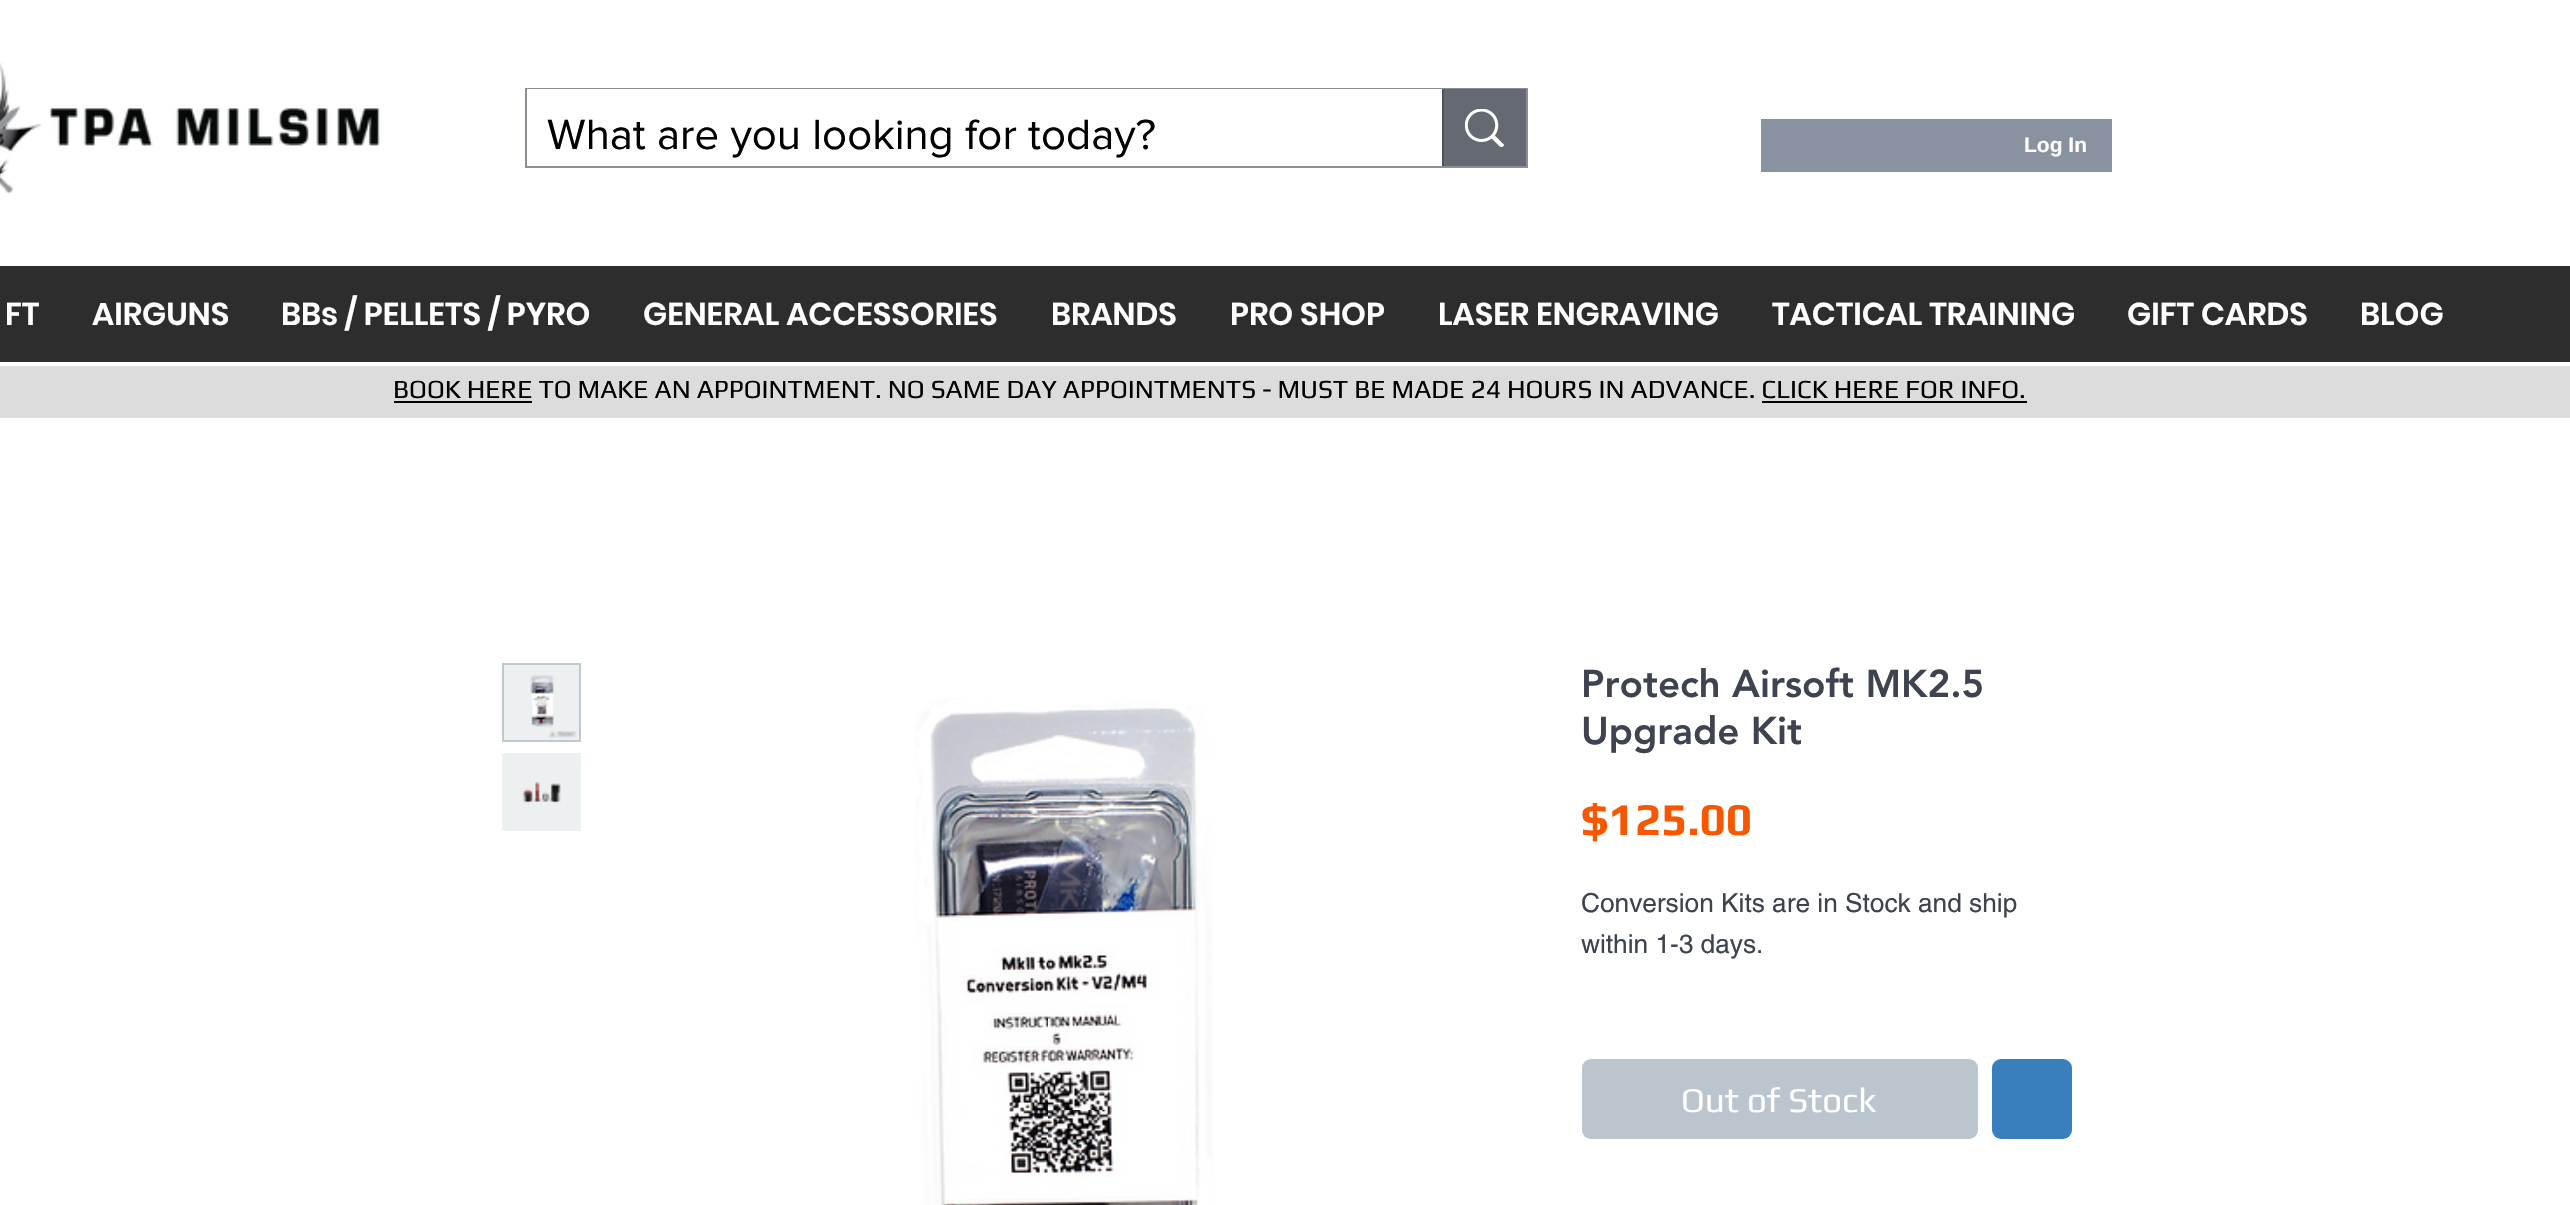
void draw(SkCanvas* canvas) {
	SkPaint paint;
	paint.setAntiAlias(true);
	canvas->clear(0xffffffff);
	canvas->drawImageRect(SkImages::DeferredFromEncodedData(SkData::MakeFromFileName("img1.png")), SkRect::MakeXYWH(0, 63, 380, 131), SkSamplingOptions());
	paint.setStroke(true);
	paint.setStrokeWidth(2);
	paint.setColor(0xff8b8e95);
	canvas->drawRect(SkRect::MakeXYWH(526, 89, 1001, 78), paint);
	paint.setStroke(false);
	paint.setColor(0xffffffff);
	canvas->drawRect(SkRect::MakeXYWH(527, 89, 915, 1), paint);
	SkFont f1(fontMgr->matchFamilyStyle("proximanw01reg", SkFontStyle::Normal()), 43.75);
	f1.setSubpixel(true);
	paint.setColor(0xff000000);
	canvas->drawString("What are you looking for today?", 547, 149, f1, paint);
	paint.setColor(0xff646972);
	canvas->drawRect(SkRect::MakeXYWH(1444, 89, 82, 77), paint);
	paint.setColor(0xff4d525d);
	canvas->drawRect(SkRect::MakeXYWH(1442, 89, 2, 77), paint);
	canvas->drawImageRect(SkImages::DeferredFromEncodedData(SkData::MakeFromFileName("img2.png")), SkRect::MakeXYWH(1465, 109, 40, 38), SkSamplingOptions());
	paint.setColor(0xff8892a1);
	canvas->drawRect(SkRect::MakeXYWH(1761, 119, 351, 53), paint);
	SkFont f2(fontMgr->matchFamilyStyle("Liberation Sans", SkFontStyle::Bold()), 21);
	f2.setSubpixel(true);
	paint.setColor(0xffffffff);
	canvas->drawString("Log In", 2024, 152, f2, paint);
	paint.setColor(0xff2d2d2d);
	canvas->drawRect(SkRect::MakeXYWH(0, 266, 2570, 96), paint);
	SkFont f3(fontMgr->matchFamilyStyle("Poppins", SkFontStyle(600, SkFontStyle::kNormal_Width, SkFontStyle::kUpright_Slant)), 31.5);
	f3.setSubpixel(true);
	paint.setColor(0xffffffff);
	canvas->drawString("FT", 5, 325, f3, paint);
	canvas->drawString("AIRGUNS", 92, 325, f3, paint);
	canvas->drawString("BBs / PELLETS / PYRO", 281, 325, f3, paint);
	canvas->drawString("GENERAL ACCESSORIES", 643, 325, f3, paint);
	canvas->drawString("BRANDS", 1051, 325, f3, paint);
	canvas->drawString("PRO SHOP", 1230, 325, f3, paint);
	canvas->drawString("LASER ENGRAVING", 1438, 325, f3, paint);
	canvas->drawString("TACTICAL TRAINING", 1772, 325, f3, paint);
	canvas->drawString("GIFT CARDS", 2127, 325, f3, paint);
	canvas->drawString("BLOG", 2360, 325, f3, paint);
	paint.setColor(0xffdcdcdc);
	canvas->drawRect(SkRect::MakeXYWH(0, 366, 2570, 52), paint);
	SkFont f4(fontMgr->matchFamilyStyle("Play", SkFontStyle::Normal()), 26.25);
	f4.setSubpixel(true);
	paint.setColor(0xff000000);
	canvas->drawString("BOOK HERE TO MAKE AN APPOINTMENT. NO SAME DAY APPOINTMENTS - MUST BE MADE 24 HOURS IN ADVANCE. CLICK HERE FOR INFO.", 393, 398, f4, paint);
	canvas->drawRect(SkRect::MakeXYWH(394, 401, 138, 2), paint);
	canvas->drawRect(SkRect::MakeXYWH(1762, 401, 265, 2), paint);
	paint.setColor(0xffecf0f1);
	canvas->drawRect(SkRect::MakeXYWH(503, 664, 77, 77), paint);
	paint.setStroke(true);
	paint.setColor(0xffbfc9d0);
	canvas->drawRect(SkRect::MakeXYWH(503, 664, 77, 77), paint);
	canvas->drawImageRect(SkImages::DeferredFromEncodedData(SkData::MakeFromFileName("img3.png")), SkRect::MakeXYWH(530, 675, 47, 63), SkSamplingOptions());
	paint.setStroke(false);
	paint.setColor(0xffecf0f1);
	canvas->drawRect(SkRect::MakeXYWH(502, 753, 79, 78), paint);
	canvas->drawImageRect(SkImages::DeferredFromEncodedData(SkData::MakeFromFileName("img4.png")), SkRect::MakeXYWH(522, 781, 39, 23), SkSamplingOptions());
	canvas->drawImageRect(SkImages::DeferredFromEncodedData(SkData::MakeFromFileName("img5.png")), SkRect::MakeXYWH(915, 698, 299, 507), SkSamplingOptions());
	SkFont f5(fontMgr->matchFamilyStyle("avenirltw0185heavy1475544", SkFontStyle(900, SkFontStyle::kNormal_Width, SkFontStyle::kUpright_Slant)), 38.5);
	f5.setSubpixel(true);
	paint.setColor(0xff3d434f);
	canvas->drawString("Protech Airsoft MK2.5", 1581, 697, f5, paint);
	canvas->drawString("Upgrade Kit", 1581, 744, f5, paint);
	SkFont f6(fontMgr->matchFamilyStyle("Play", SkFontStyle::Bold()), 45.5);
	f6.setSubpixel(true);
	paint.setColor(0xfff75700);
	canvas->drawString("$125.00", 1581, 835, f6, paint);
	SkFont f7(fontMgr->matchFamilyStyle("helvetica", SkFontStyle::Normal()), 26.25);
	f7.setSubpixel(true);
	paint.setColor(0xff3d434f);
	canvas->drawString("Conversion Kits are in Stock and ship", 1581, 912, f7, paint);
	canvas->drawString("within 1-3 days.", 1581, 953, f7, paint);
	paint.setColor(0xffbac5cd);
	canvas->drawRoundRect(SkRect::MakeXYWH(1582, 1059, 396, 80), 9, 9, paint);
	SkFont f8(fontMgr->matchFamilyStyle("Play", SkFontStyle::Normal()), 35);
	f8.setSubpixel(true);
	paint.setColor(0xffffffff);
	canvas->drawString("Out of Stock", 1681, 1112, f8, paint);
	paint.setColor(0xff387fbb);
	canvas->drawRoundRect(SkRect::MakeXYWH(1992, 1059, 80, 80), 9, 9, paint);
}
